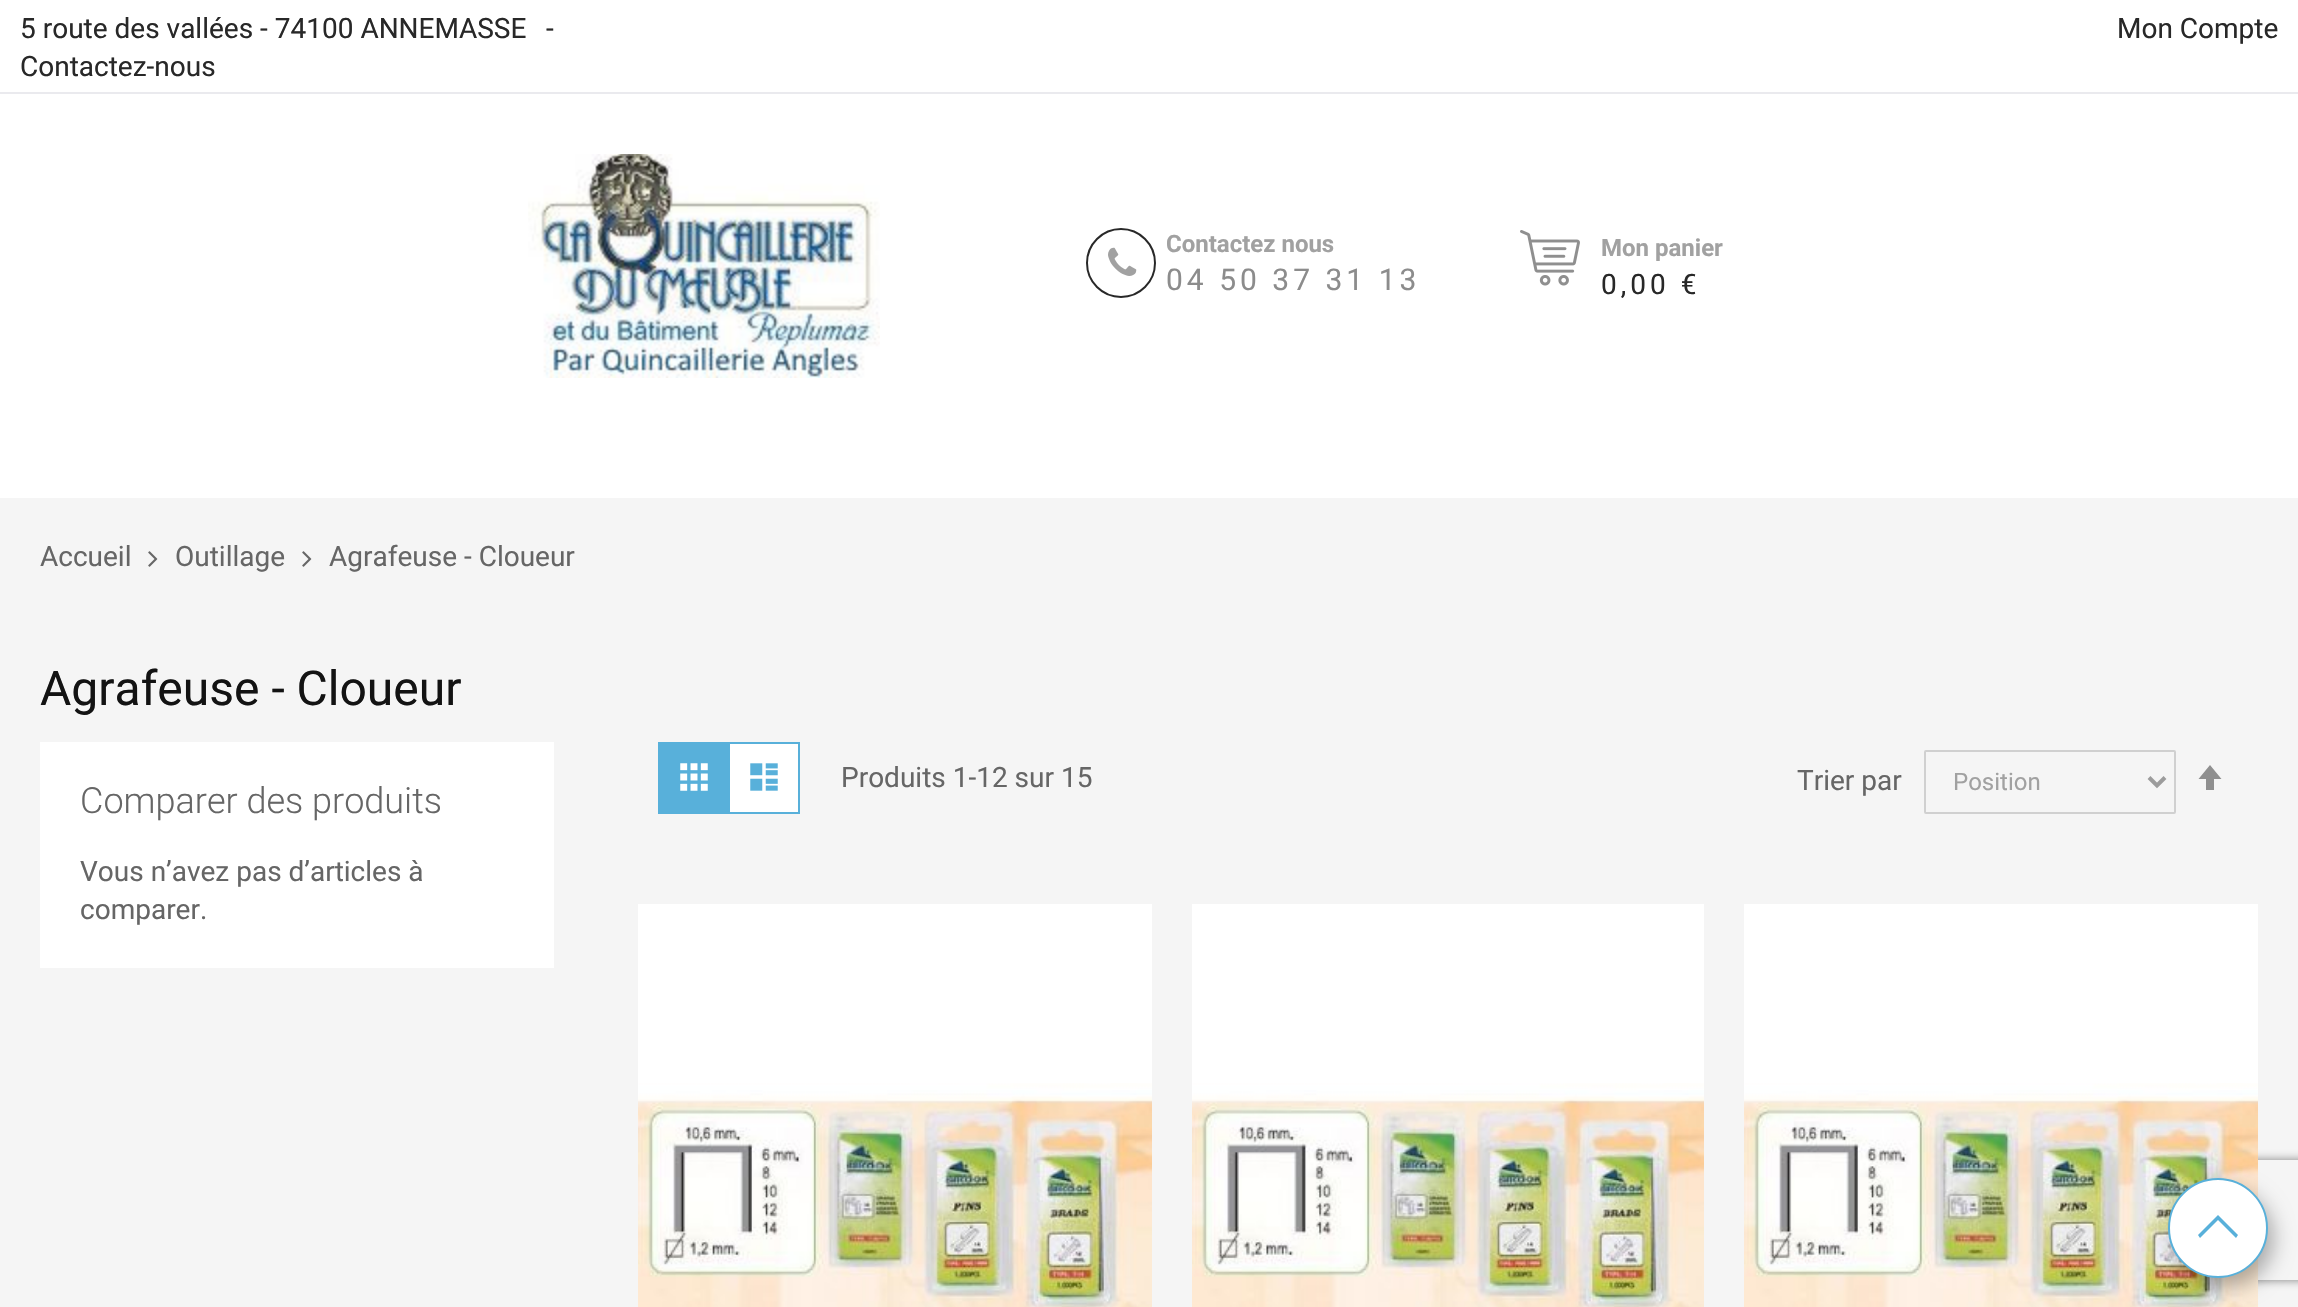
void draw(SkCanvas* canvas) {
	SkPaint paint;
	paint.setAntiAlias(true);
	auto spacedText = [&](const char* s, float x, float y, const SkFont& font, const SkPaint& ink, float letter, float word) {
		std::vector<SkGlyphID> glyphs(font.countText(s, strlen(s), SkTextEncoding::kUTF8));
		std::vector<float> xs(glyphs.size());
		font.textToGlyphs(s, strlen(s), SkTextEncoding::kUTF8, glyphs);
		font.getXPos(glyphs, xs, x);
		float extra = 0;
		for (size_t i = 0; i < glyphs.size(); i++) {
			xs[i] += extra;
			extra += letter + word * (glyphs[i] == font.unicharToGlyph(' '));
		}
		canvas->drawTextBlob(SkTextBlob::MakeFromPosHGlyphs(glyphs, xs, y, font), 0, 0, ink);
	};
	auto svgPath = [&](const char* data, bool evenOdd = false) {
		SkPath result = *SkParsePath::FromSVGString(data);
		if (evenOdd) result.setFillType(SkPathFillType::kEvenOdd);
		return result;
	};
	canvas->clear(0xfff5f5f5);
	paint.setColor(0xffffffff);
	canvas->drawRect(SkRect::MakeXYWH(0, 0, 2298, 498), paint);
	paint.setColor(0xffeaeaee);
	canvas->drawRect(SkRect::MakeXYWH(0, 92, 2298, 2), paint);
	SkFont f1(fontMgr->matchFamilyStyle("Roboto", SkFontStyle::Normal()), 28);
	f1.setSubpixel(true);
	paint.setColor(0xff282828);
	canvas->drawString("5 route des vallées - 74100 ANNEMASSE", 20, 38, f1, paint);
	canvas->drawString("-", 546, 38, f1, paint);
	canvas->drawString("Contactez-nous", 20, 76, f1, paint);
	canvas->drawString("Mon Compte", 2117, 38, f1, paint);
	canvas->drawImageRect(SkImages::DeferredFromEncodedData(SkData::MakeFromFileName("img1.png")), SkRect::MakeXYWH(528, 154, 352, 224), SkSamplingOptions());
	paint.setStroke(true);
	paint.setStrokeWidth(2);
	canvas->drawCircle(1121, 263, 34, paint);
	canvas->drawImageRect(SkImages::DeferredFromEncodedData(SkData::MakeFromFileName("img2.png")), SkRect::MakeXYWH(1108, 247, 29, 29), SkSamplingOptions());
	SkFont f2(fontMgr->matchFamilyStyle("Roboto", SkFontStyle::Bold()), 24);
	f2.setSubpixel(true);
	paint.setStroke(false);
	paint.setColor(0xffa1a1a1);
	canvas->drawString("Contactez nous", 1166, 252, f2, paint);
	SkFont f3(fontMgr->matchFamilyStyle("Roboto", SkFontStyle::Normal()), 30);
	f3.setSubpixel(true);
	paint.setColor(0xff8c8c8c);
	spacedText("04 50 37 31 13", 1166, 290, f3, paint, 4, 0);
	canvas->drawImageRect(SkImages::DeferredFromEncodedData(SkData::MakeFromFileName("img3.png")), SkRect::MakeXYWH(1520, 230, 60, 56), SkSamplingOptions());
	paint.setColor(0xffa1a1a1);
	canvas->drawString("Mon panier", 1601, 256, f2, paint);
	paint.setColor(0xff282828);
	spacedText("0,00 €", 1601, 294, f1, paint, 4, 0);
	paint.setColor(0xff666666);
	canvas->drawString("Accueil", 40, 566, f1, paint);
	canvas->drawImageRect(SkImages::DeferredFromEncodedData(SkData::MakeFromFileName("img4.png")), SkRect::MakeXYWH(148, 551, 10, 16), SkSamplingOptions());
	canvas->drawString("Outillage", 175, 566, f1, paint);
	canvas->drawImageRect(SkImages::DeferredFromEncodedData(SkData::MakeFromFileName("img4.png")), SkRect::MakeXYWH(302, 551, 10, 16), SkSamplingOptions());
	canvas->drawString("Agrafeuse - Cloueur", 329, 566, f1, paint);
	SkFont f4(fontMgr->matchFamilyStyle("Roboto", SkFontStyle::Normal()), 48);
	f4.setSubpixel(true);
	paint.setColor(0xff131313);
	canvas->drawString("Agrafeuse - Cloueur", 40, 705, f4, paint);
	paint.setColor(0xff58b0da);
	canvas->drawRect(SkRect::MakeXYWH(658, 742, 70, 72), paint);
	canvas->drawImageRect(SkImages::DeferredFromEncodedData(SkData::MakeFromFileName("img5.png")), SkRect::MakeXYWH(680, 763, 28, 28), SkSamplingOptions());
	paint.setColor(0xffffffff);
	canvas->drawRect(SkRect::MakeXYWH(729, 743, 70, 70), paint);
	paint.setStroke(true);
	paint.setColor(0xff58b0da);
	canvas->drawRect(SkRect::MakeXYWH(729, 743, 70, 70), paint);
	canvas->drawImageRect(SkImages::DeferredFromEncodedData(SkData::MakeFromFileName("img6.png")), SkRect::MakeXYWH(750, 763, 28, 28), SkSamplingOptions());
	paint.setStroke(false);
	paint.setColor(0xff666666);
	canvas->drawString("Produits 1-12 sur 15", 841, 787, f1, paint);
	canvas->drawString("Trier par", 1797, 790, f1, paint);
	paint.setStroke(true);
	paint.setColor(0xffd0d0d0);
	canvas->drawRoundRect(SkRect::MakeXYWH(1925, 751, 250, 62), 1, 1, paint);
	paint.setStrokeWidth(4);
	paint.setColor(0xff9c9c9c);
	canvas->drawPath(svgPath("M2149 777.5L2157 785.5L2165 777.5"), paint);
	SkFont f5(fontMgr->matchFamilyStyle("Roboto", SkFontStyle::Normal()), 24);
	f5.setSubpixel(true);
	paint.setStroke(false);
	paint.setColor(0xffa1a1a1);
	canvas->drawString("Position", 1953, 790, f5, paint);
	paint.setColor(0xff8f8f8f);
	canvas->drawPath(svgPath("M2210 765L2198.5 779H2206V790H2214V779H2221.5Z"), paint);
	paint.setColor(0xffffffff);
	canvas->drawRect(SkRect::MakeXYWH(638, 904, 514, 403), paint);
	canvas->drawImageRect(SkImages::DeferredFromEncodedData(SkData::MakeFromFileName("img7.png")), SkRect::MakeXYWH(638, 1083, 514, 224), SkSamplingOptions());
	canvas->drawRect(SkRect::MakeXYWH(1192, 904, 512, 403), paint);
	canvas->drawImageRect(SkImages::DeferredFromEncodedData(SkData::MakeFromFileName("img8.png")), SkRect::MakeXYWH(1192, 1083, 512, 224), SkSamplingOptions());
	canvas->save();
	canvas->clipPath(svgPath("M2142 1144H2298V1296H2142ZM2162 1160H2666C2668 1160 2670 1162 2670 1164V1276C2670 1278 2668 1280 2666 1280H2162C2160 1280 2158 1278 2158 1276V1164C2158 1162 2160 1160 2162 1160Z", true), true);
	paint.setColor(0xff808080);
	paint.setMaskFilter(SkMaskFilter::MakeBlur(kNormal_SkBlurStyle, 5));
	canvas->drawRoundRect(SkRect::MakeXYWH(2158, 1160, 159, 120), 4, 4, paint);
	paint.setMaskFilter(nullptr);
	canvas->restore();
	paint.setColor(0xffffffff);
	canvas->drawRect(SkRect::MakeXYWH(1744, 904, 514, 403), paint);
	canvas->drawImageRect(SkImages::DeferredFromEncodedData(SkData::MakeFromFileName("img7.png")), SkRect::MakeXYWH(1744, 1083, 514, 224), SkSamplingOptions());
	canvas->drawRect(SkRect::MakeXYWH(40, 742, 514, 226), paint);
	SkFont f6(fontMgr->matchFamilyStyle("Roboto", SkFontStyle(300, SkFontStyle::kNormal_Width, SkFontStyle::kUpright_Slant)), 36);
	f6.setSubpixel(true);
	paint.setColor(0xff666666);
	canvas->drawString("Comparer des produits", 80, 813, f6, paint);
	canvas->drawString("Vous n’avez pas d’articles à", 80, 881, f1, paint);
	canvas->drawString("comparer.", 80, 919, f1, paint);
	paint.setColor(0x4d000000);
	paint.setMaskFilter(SkMaskFilter::MakeBlur(kNormal_SkBlurStyle, 10));
	canvas->drawRoundRect(SkRect::MakeXYWH(2174, 1188, 100, 100), 50, 50, paint);
	paint.setMaskFilter(nullptr);
	paint.setColor(0xffffffff);
	canvas->drawCircle(2218, 1228, 49, paint);
	paint.setStroke(true);
	paint.setStrokeWidth(2);
	paint.setColor(0xff58b0da);
	canvas->drawCircle(2218, 1228, 49, paint);
	paint.setStroke(false);
	canvas->drawPath(svgPath("M2218 1215L2198 1235L2200 1238L2218 1220L2236 1238L2238 1235Z"), paint);
}
